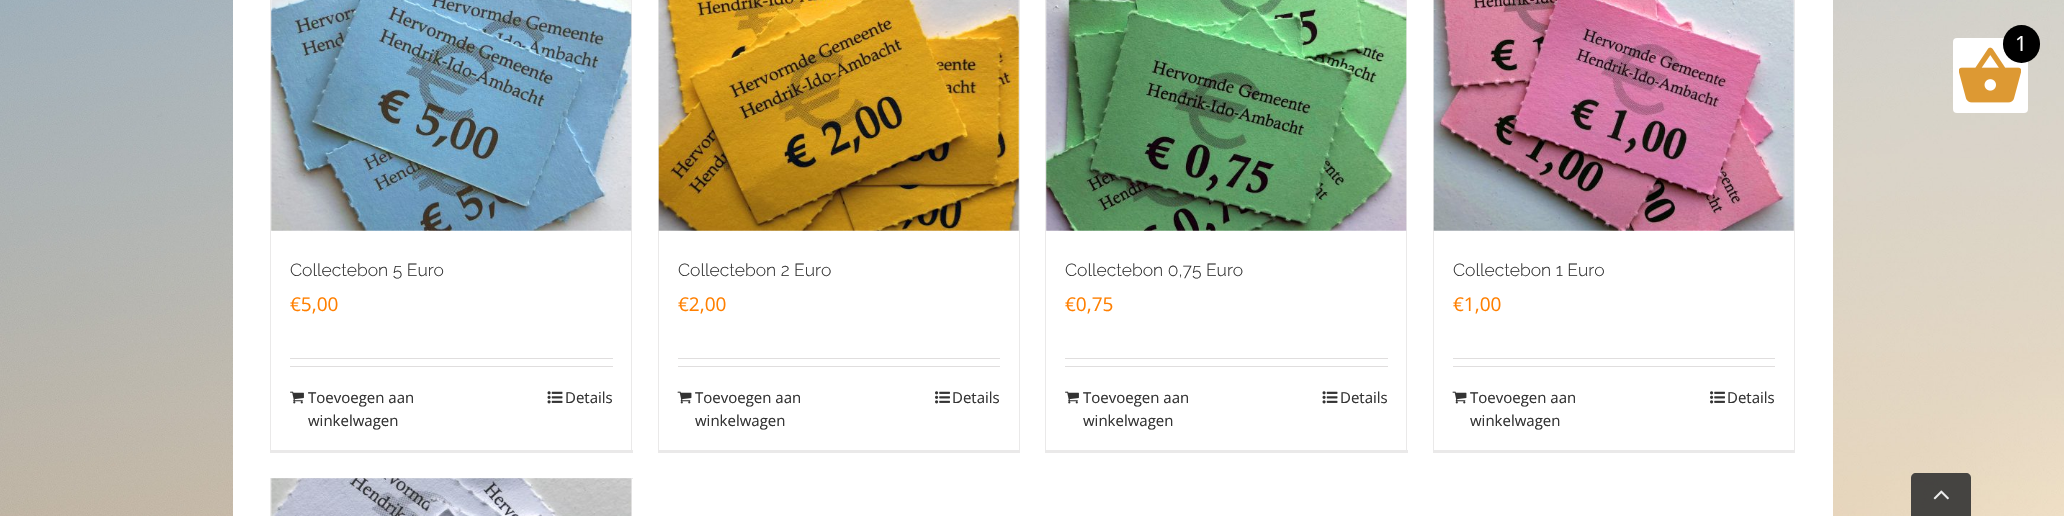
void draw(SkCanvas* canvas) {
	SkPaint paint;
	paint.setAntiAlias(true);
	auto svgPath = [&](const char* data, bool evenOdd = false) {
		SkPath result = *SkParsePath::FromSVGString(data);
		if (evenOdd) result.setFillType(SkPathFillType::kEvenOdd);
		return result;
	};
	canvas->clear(0xffffffff);
	canvas->drawImageRect(SkImages::DeferredFromEncodedData(SkData::MakeFromFileName("img1.png")), SkRect::MakeXYWH(0, 0, 2064, 516), SkSamplingOptions());
	paint.setColor(0xffffffff);
	canvas->drawRoundRect(SkRect::MakeXYWH(1953, 38, 75, 75), 4, 4, paint);
	canvas->drawImageRect(SkImages::DeferredFromEncodedData(SkData::MakeFromFileName("img2.png")), SkRect::MakeXYWH(1959, 47, 62, 56), SkSamplingOptions());
	paint.setColor(0xff000000);
	canvas->drawRoundRect(SkRect::MakeXYWH(2003, 25, 37, 38), 18.5, 18.5, paint);
	SkFont f1(fontMgr->matchFamilyStyle("Open Sans", SkFontStyle::Normal()), 21);
	f1.setSubpixel(true);
	paint.setColor(0xffffffff);
	canvas->drawString("1", 2015, 51, f1, paint);
	canvas->drawRect(SkRect::MakeXYWH(233, 0, 1600, 516), paint);
	paint.setColor(0xffeae9e9);
	canvas->drawRect(SkRect::MakeXYWH(631, 0, 1, 453), paint);
	canvas->drawRect(SkRect::MakeXYWH(270, 450, 363, 3), paint);
	canvas->drawRect(SkRect::MakeXYWH(270, 0, 1, 453), paint);
	canvas->drawImageRect(SkImages::DeferredFromEncodedData(SkData::MakeFromFileName("img3.png")), SkRect::MakeXYWH(271, 0, 361, 231), SkSamplingOptions());
	SkFont f2(fontMgr->matchFamilyStyle("Raleway", SkFontStyle(300, SkFontStyle::kNormal_Width, SkFontStyle::kUpright_Slant)), 17.5);
	f2.setSubpixel(true);
	paint.setColor(0xff333333);
	canvas->drawString("Collectebon 5 Euro", 290, 276, f2, paint);
	SkFont f3(fontMgr->matchFamilyStyle("Open Sans", SkFontStyle::Normal()), 19);
	f3.setSubpixel(true);
	paint.setColor(0xffff7f00);
	canvas->drawString("€5,00", 290, 311, f3, paint);
	paint.setColor(0xffe0dede);
	canvas->drawRect(SkRect::MakeXYWH(290, 358, 323, 1), paint);
	canvas->drawRect(SkRect::MakeXYWH(290, 366, 323, 1), paint);
	canvas->drawImageRect(SkImages::DeferredFromEncodedData(SkData::MakeFromFileName("img4.png")), SkRect::MakeXYWH(290, 391, 14, 13), SkSamplingOptions());
	SkFont f4(fontMgr->matchFamilyStyle("Open Sans", SkFontStyle::Normal()), 15);
	f4.setSubpixel(true);
	paint.setColor(0xff333333);
	canvas->drawString("Toevoegen aan", 308, 403, f4, paint);
	canvas->drawString("winkelwagen", 308, 426, f4, paint);
	canvas->drawImageRect(SkImages::DeferredFromEncodedData(SkData::MakeFromFileName("img5.png")), SkRect::MakeXYWH(547, 391, 16, 13), SkSamplingOptions());
	canvas->drawString("Details", 565, 403, f4, paint);
	paint.setColor(0xffeae9e9);
	canvas->drawRect(SkRect::MakeXYWH(1019, 0, 1, 453), paint);
	canvas->drawRect(SkRect::MakeXYWH(658, 450, 362, 3), paint);
	canvas->drawRect(SkRect::MakeXYWH(658, 0, 1, 453), paint);
	canvas->drawImageRect(SkImages::DeferredFromEncodedData(SkData::MakeFromFileName("img6.png")), SkRect::MakeXYWH(658, 0, 361, 231), SkSamplingOptions());
	paint.setColor(0xff333333);
	canvas->drawString("Collectebon 2 Euro", 678, 276, f2, paint);
	paint.setColor(0xffff7f00);
	canvas->drawString("€2,00", 678, 311, f3, paint);
	paint.setColor(0xffe0dede);
	canvas->drawRect(SkRect::MakeXYWH(678, 358, 322, 1), paint);
	canvas->drawRect(SkRect::MakeXYWH(678, 366, 322, 1), paint);
	canvas->drawImageRect(SkImages::DeferredFromEncodedData(SkData::MakeFromFileName("img7.png")), SkRect::MakeXYWH(677, 391, 15, 13), SkSamplingOptions());
	paint.setColor(0xff333333);
	canvas->drawString("Toevoegen aan", 695, 403, f4, paint);
	canvas->drawString("winkelwagen", 695, 426, f4, paint);
	canvas->drawImageRect(SkImages::DeferredFromEncodedData(SkData::MakeFromFileName("img8.png")), SkRect::MakeXYWH(935, 391, 15, 13), SkSamplingOptions());
	canvas->drawString("Details", 952, 403, f4, paint);
	paint.setColor(0xffeae9e9);
	canvas->drawRect(SkRect::MakeXYWH(1406, 0, 1, 453), paint);
	canvas->drawRect(SkRect::MakeXYWH(1045, 450, 363, 3), paint);
	canvas->drawRect(SkRect::MakeXYWH(1045, 0, 1, 453), paint);
	canvas->drawImageRect(SkImages::DeferredFromEncodedData(SkData::MakeFromFileName("img9.png")), SkRect::MakeXYWH(1046, 0, 361, 231), SkSamplingOptions());
	paint.setColor(0xff333333);
	canvas->drawString("Collectebon 0,75 Euro", 1065, 276, f2, paint);
	paint.setColor(0xffff7f00);
	canvas->drawString("€0,75", 1065, 311, f3, paint);
	paint.setColor(0xffe0dede);
	canvas->drawRect(SkRect::MakeXYWH(1065, 358, 323, 1), paint);
	canvas->drawRect(SkRect::MakeXYWH(1065, 366, 323, 1), paint);
	canvas->drawImageRect(SkImages::DeferredFromEncodedData(SkData::MakeFromFileName("img4.png")), SkRect::MakeXYWH(1065, 391, 14, 13), SkSamplingOptions());
	paint.setColor(0xff333333);
	canvas->drawString("Toevoegen aan", 1083, 403, f4, paint);
	canvas->drawString("winkelwagen", 1083, 426, f4, paint);
	canvas->drawImageRect(SkImages::DeferredFromEncodedData(SkData::MakeFromFileName("img5.png")), SkRect::MakeXYWH(1322, 391, 16, 13), SkSamplingOptions());
	canvas->drawString("Details", 1340, 403, f4, paint);
	paint.setColor(0xffeae9e9);
	canvas->drawRect(SkRect::MakeXYWH(1794, 0, 1, 453), paint);
	canvas->drawRect(SkRect::MakeXYWH(1433, 450, 362, 3), paint);
	canvas->drawRect(SkRect::MakeXYWH(1433, 0, 1, 453), paint);
	canvas->drawImageRect(SkImages::DeferredFromEncodedData(SkData::MakeFromFileName("img10.png")), SkRect::MakeXYWH(1433, 0, 361, 231), SkSamplingOptions());
	paint.setColor(0xff333333);
	canvas->drawString("Collectebon 1 Euro", 1453, 276, f2, paint);
	paint.setColor(0xffff7f00);
	canvas->drawString("€1,00", 1453, 311, f3, paint);
	paint.setColor(0xffe0dede);
	canvas->drawRect(SkRect::MakeXYWH(1453, 358, 322, 1), paint);
	canvas->drawRect(SkRect::MakeXYWH(1453, 366, 322, 1), paint);
	canvas->drawImageRect(SkImages::DeferredFromEncodedData(SkData::MakeFromFileName("img7.png")), SkRect::MakeXYWH(1452, 391, 15, 13), SkSamplingOptions());
	paint.setColor(0xff333333);
	canvas->drawString("Toevoegen aan", 1470, 403, f4, paint);
	canvas->drawString("winkelwagen", 1470, 426, f4, paint);
	canvas->drawImageRect(SkImages::DeferredFromEncodedData(SkData::MakeFromFileName("img8.png")), SkRect::MakeXYWH(1710, 391, 15, 13), SkSamplingOptions());
	canvas->drawString("Details", 1727, 403, f4, paint);
	paint.setColor(0xffeae9e9);
	canvas->drawRect(SkRect::MakeXYWH(270, 478, 363, 1), paint);
	canvas->drawRect(SkRect::MakeXYWH(631, 478, 1, 38), paint);
	canvas->drawRect(SkRect::MakeXYWH(270, 478, 1, 38), paint);
	canvas->drawImageRect(SkImages::DeferredFromEncodedData(SkData::MakeFromFileName("img11.png")), SkRect::MakeXYWH(271, 478, 361, 38), SkSamplingOptions());
	paint.setColor(0xe6333333);
	canvas->drawPath(svgPath("M1916 473H1966C1969 473 1971 475 1971 478V516H1911V478C1911 475 1913 473 1916 473Z"), paint);
	canvas->drawImageRect(SkImages::DeferredFromEncodedData(SkData::MakeFromFileName("img12.png")), SkRect::MakeXYWH(1933, 490, 16, 10), SkSamplingOptions());
}
